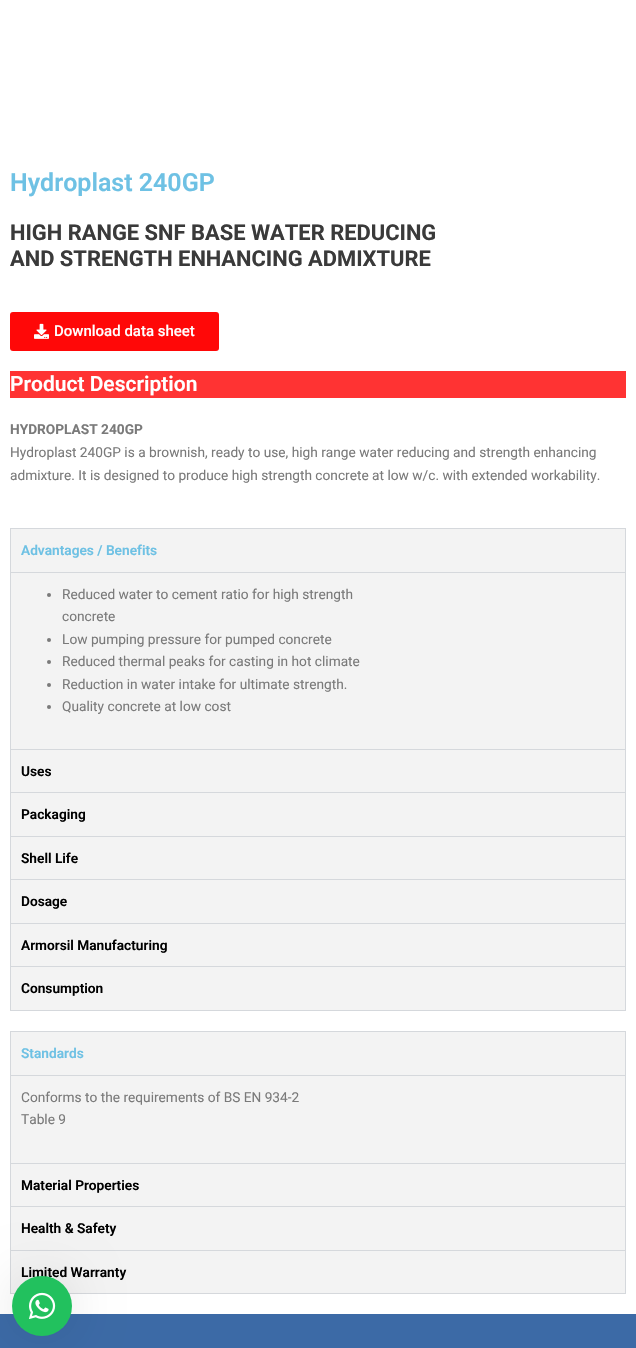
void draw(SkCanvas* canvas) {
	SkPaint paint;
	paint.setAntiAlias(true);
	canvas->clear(0xffffffff);
	SkFont f1(fontMgr->matchFamilyStyle("Roboto", SkFontStyle(600, SkFontStyle::kNormal_Width, SkFontStyle::kUpright_Slant)), 25);
	f1.setSubpixel(true);
	paint.setColor(0xff6ec1e4);
	canvas->drawString("Hydroplast 240GP", 10, 191, f1, paint);
	SkFont f2(fontMgr->matchFamilyStyle("Roboto", SkFontStyle::Bold()), 21.9);
	f2.setSubpixel(true);
	paint.setColor(0xff3a3a3a);
	canvas->drawString("HIGH RANGE SNF BASE WATER REDUCING", 10, 240, f2, paint);
	canvas->drawString("AND STRENGTH ENHANCING ADMIXTURE", 10, 266, f2, paint);
	paint.setColor(0xffff0808);
	canvas->drawRoundRect(SkRect::MakeXYWH(10, 312, 209, 39), 3, 3, paint);
	canvas->drawImageRect(SkImages::DeferredFromEncodedData(SkData::MakeFromFileName("img1.png")), SkRect::MakeXYWH(34, 323, 15, 16), SkSamplingOptions());
	SkFont f3(fontMgr->matchFamilyStyle("Roboto", SkFontStyle(500, SkFontStyle::kNormal_Width, SkFontStyle::kUpright_Slant)), 15);
	f3.setSubpixel(true);
	paint.setColor(0xffffffff);
	canvas->drawString("Download data sheet", 54, 336, f3, paint);
	paint.setColor(0xffff3333);
	canvas->drawRect(SkRect::MakeXYWH(10, 371, 616, 27), paint);
	SkFont f4(fontMgr->matchFamilyStyle("Roboto", SkFontStyle(600, SkFontStyle::kNormal_Width, SkFontStyle::kUpright_Slant)), 21);
	f4.setSubpixel(true);
	paint.setColor(0xffffffff);
	canvas->drawString("Product Description", 10, 391, f4, paint);
	SkFont f5(fontMgr->matchFamilyStyle("Roboto", SkFontStyle::Bold()), 13.7);
	f5.setSubpixel(true);
	paint.setColor(0xff7a7a7a);
	canvas->drawString("HYDROPLAST 240GP", 10, 434, f5, paint);
	SkFont f6(fontMgr->matchFamilyStyle("Roboto", SkFontStyle::Normal()), 13.7);
	f6.setSubpixel(true);
	canvas->drawString("Hydroplast 240GP is a brownish, ready to use, high range water reducing and strength enhancing", 10, 457, f6, paint);
	canvas->drawString("admixture. It is designed to produce high strength concrete at low w/c. with extended workability.", 10, 480, f6, paint);
	paint.setColor(0xfff3f3f3);
	canvas->drawRect(SkRect::MakeXYWH(11, 529, 614, 481), paint);
	paint.setColor(0xffd5d8dc);
	canvas->drawRect(SkRect::MakeXYWH(10, 1010, 616, 1), paint);
	canvas->drawRect(SkRect::MakeXYWH(10, 528, 616, 1), paint);
	canvas->drawRect(SkRect::MakeXYWH(625, 528, 1, 44), paint);
	canvas->drawRect(SkRect::MakeXYWH(10, 528, 1, 44), paint);
	SkFont f7(fontMgr->matchFamilyStyle("Roboto", SkFontStyle(600, SkFontStyle::kNormal_Width, SkFontStyle::kUpright_Slant)), 13.7);
	f7.setSubpixel(true);
	paint.setColor(0xff6ec1e4);
	canvas->drawString("Advantages / Benefits", 21, 555, f7, paint);
	paint.setColor(0xffd5d8dc);
	canvas->drawRect(SkRect::MakeXYWH(10, 572, 616, 1), paint);
	canvas->drawRect(SkRect::MakeXYWH(625, 572, 1, 177), paint);
	canvas->drawRect(SkRect::MakeXYWH(10, 572, 1, 177), paint);
	paint.setColor(0xff7a7a7a);
	canvas->drawCircle(49, 595, 2, paint);
	canvas->drawString("Reduced water to cement ratio for high strength", 62, 599, f6, paint);
	canvas->drawString("concrete", 62, 621, f6, paint);
	canvas->drawCircle(49, 640, 2, paint);
	canvas->drawString("Low pumping pressure for pumped concrete", 62, 644, f6, paint);
	canvas->drawCircle(49, 662, 2, paint);
	canvas->drawString("Reduced thermal peaks for casting in hot climate", 62, 666, f6, paint);
	canvas->drawCircle(49, 685, 2, paint);
	canvas->drawString("Reduction in water intake for ultimate strength.", 62, 689, f6, paint);
	canvas->drawCircle(49, 707, 2, paint);
	canvas->drawString("Quality concrete at low cost", 62, 711, f6, paint);
	paint.setColor(0xffd5d8dc);
	canvas->drawRect(SkRect::MakeXYWH(10, 749, 616, 1), paint);
	canvas->drawRect(SkRect::MakeXYWH(625, 749, 1, 43), paint);
	canvas->drawRect(SkRect::MakeXYWH(10, 749, 1, 43), paint);
	paint.setColor(0xff000000);
	canvas->drawString("Uses", 21, 776, f7, paint);
	paint.setColor(0xffd5d8dc);
	canvas->drawRect(SkRect::MakeXYWH(10, 792, 616, 1), paint);
	canvas->drawRect(SkRect::MakeXYWH(625, 792, 1, 44), paint);
	canvas->drawRect(SkRect::MakeXYWH(10, 792, 1, 44), paint);
	paint.setColor(0xff000000);
	canvas->drawString("Packaging", 21, 819, f7, paint);
	paint.setColor(0xffd5d8dc);
	canvas->drawRect(SkRect::MakeXYWH(10, 836, 616, 1), paint);
	canvas->drawRect(SkRect::MakeXYWH(625, 836, 1, 43), paint);
	canvas->drawRect(SkRect::MakeXYWH(10, 836, 1, 43), paint);
	paint.setColor(0xff000000);
	canvas->drawString("Shell Life", 21, 863, f7, paint);
	paint.setColor(0xffd5d8dc);
	canvas->drawRect(SkRect::MakeXYWH(10, 879, 616, 1), paint);
	canvas->drawRect(SkRect::MakeXYWH(625, 879, 1, 44), paint);
	canvas->drawRect(SkRect::MakeXYWH(10, 879, 1, 44), paint);
	paint.setColor(0xff000000);
	canvas->drawString("Dosage", 21, 906, f7, paint);
	paint.setColor(0xffd5d8dc);
	canvas->drawRect(SkRect::MakeXYWH(10, 923, 616, 1), paint);
	canvas->drawRect(SkRect::MakeXYWH(625, 923, 1, 43), paint);
	canvas->drawRect(SkRect::MakeXYWH(10, 923, 1, 43), paint);
	paint.setColor(0xff000000);
	canvas->drawString("Armorsil Manufacturing", 21, 950, f7, paint);
	paint.setColor(0xffd5d8dc);
	canvas->drawRect(SkRect::MakeXYWH(10, 966, 616, 1), paint);
	canvas->drawRect(SkRect::MakeXYWH(625, 966, 1, 44), paint);
	canvas->drawRect(SkRect::MakeXYWH(10, 966, 1, 44), paint);
	paint.setColor(0xff000000);
	canvas->drawString("Consumption", 21, 993, f7, paint);
	paint.setColor(0xfff3f3f3);
	canvas->drawRect(SkRect::MakeXYWH(11, 1032, 614, 261), paint);
	paint.setColor(0xffd5d8dc);
	canvas->drawRect(SkRect::MakeXYWH(10, 1293, 616, 1), paint);
	canvas->drawRect(SkRect::MakeXYWH(10, 1031, 616, 1), paint);
	canvas->drawRect(SkRect::MakeXYWH(625, 1031, 1, 44), paint);
	canvas->drawRect(SkRect::MakeXYWH(10, 1031, 1, 44), paint);
	paint.setColor(0xff6ec1e4);
	canvas->drawString("Standards", 21, 1058, f7, paint);
	paint.setColor(0xffd5d8dc);
	canvas->drawRect(SkRect::MakeXYWH(10, 1075, 616, 1), paint);
	canvas->drawRect(SkRect::MakeXYWH(625, 1075, 1, 88), paint);
	canvas->drawRect(SkRect::MakeXYWH(10, 1075, 1, 88), paint);
	paint.setColor(0xff7a7a7a);
	canvas->drawString("Conforms to the requirements of BS EN 934-2", 21, 1102, f6, paint);
	canvas->drawString("Table 9", 21, 1124, f6, paint);
	paint.setColor(0xffd5d8dc);
	canvas->drawRect(SkRect::MakeXYWH(10, 1163, 616, 1), paint);
	canvas->drawRect(SkRect::MakeXYWH(625, 1163, 1, 43), paint);
	canvas->drawRect(SkRect::MakeXYWH(10, 1163, 1, 43), paint);
	paint.setColor(0xff000000);
	canvas->drawString("Material Properties", 21, 1190, f7, paint);
	paint.setColor(0xffd5d8dc);
	canvas->drawRect(SkRect::MakeXYWH(10, 1206, 616, 1), paint);
	canvas->drawRect(SkRect::MakeXYWH(625, 1206, 1, 44), paint);
	canvas->drawRect(SkRect::MakeXYWH(10, 1206, 1, 44), paint);
	paint.setColor(0xff000000);
	canvas->drawString("Health & Safety", 21, 1233, f7, paint);
	paint.setColor(0xffd5d8dc);
	canvas->drawRect(SkRect::MakeXYWH(10, 1250, 616, 1), paint);
	canvas->drawRect(SkRect::MakeXYWH(625, 1250, 1, 43), paint);
	canvas->drawRect(SkRect::MakeXYWH(10, 1250, 1, 43), paint);
	paint.setColor(0xff000000);
	canvas->drawString("Limited Warranty", 21, 1277, f7, paint);
	paint.setColor(0xff3c6aa6);
	canvas->drawRect(SkRect::MakeXYWH(0, 1314, 636, 34), paint);
	paint.setColor(0x1a000000);
	paint.setMaskFilter(SkMaskFilter::MakeBlur(kNormal_SkBlurStyle, 25));
	canvas->drawRoundRect(SkRect::MakeXYWH(12, 1276, 60, 60), 30, 30, paint);
	paint.setMaskFilter(nullptr);
	paint.setColor(0xff22c15e);
	canvas->drawCircle(42, 1306, 30, paint);
	canvas->drawImageRect(SkImages::DeferredFromEncodedData(SkData::MakeFromFileName("img2.png")), SkRect::MakeXYWH(29, 1292, 27, 27), SkSamplingOptions());
}
